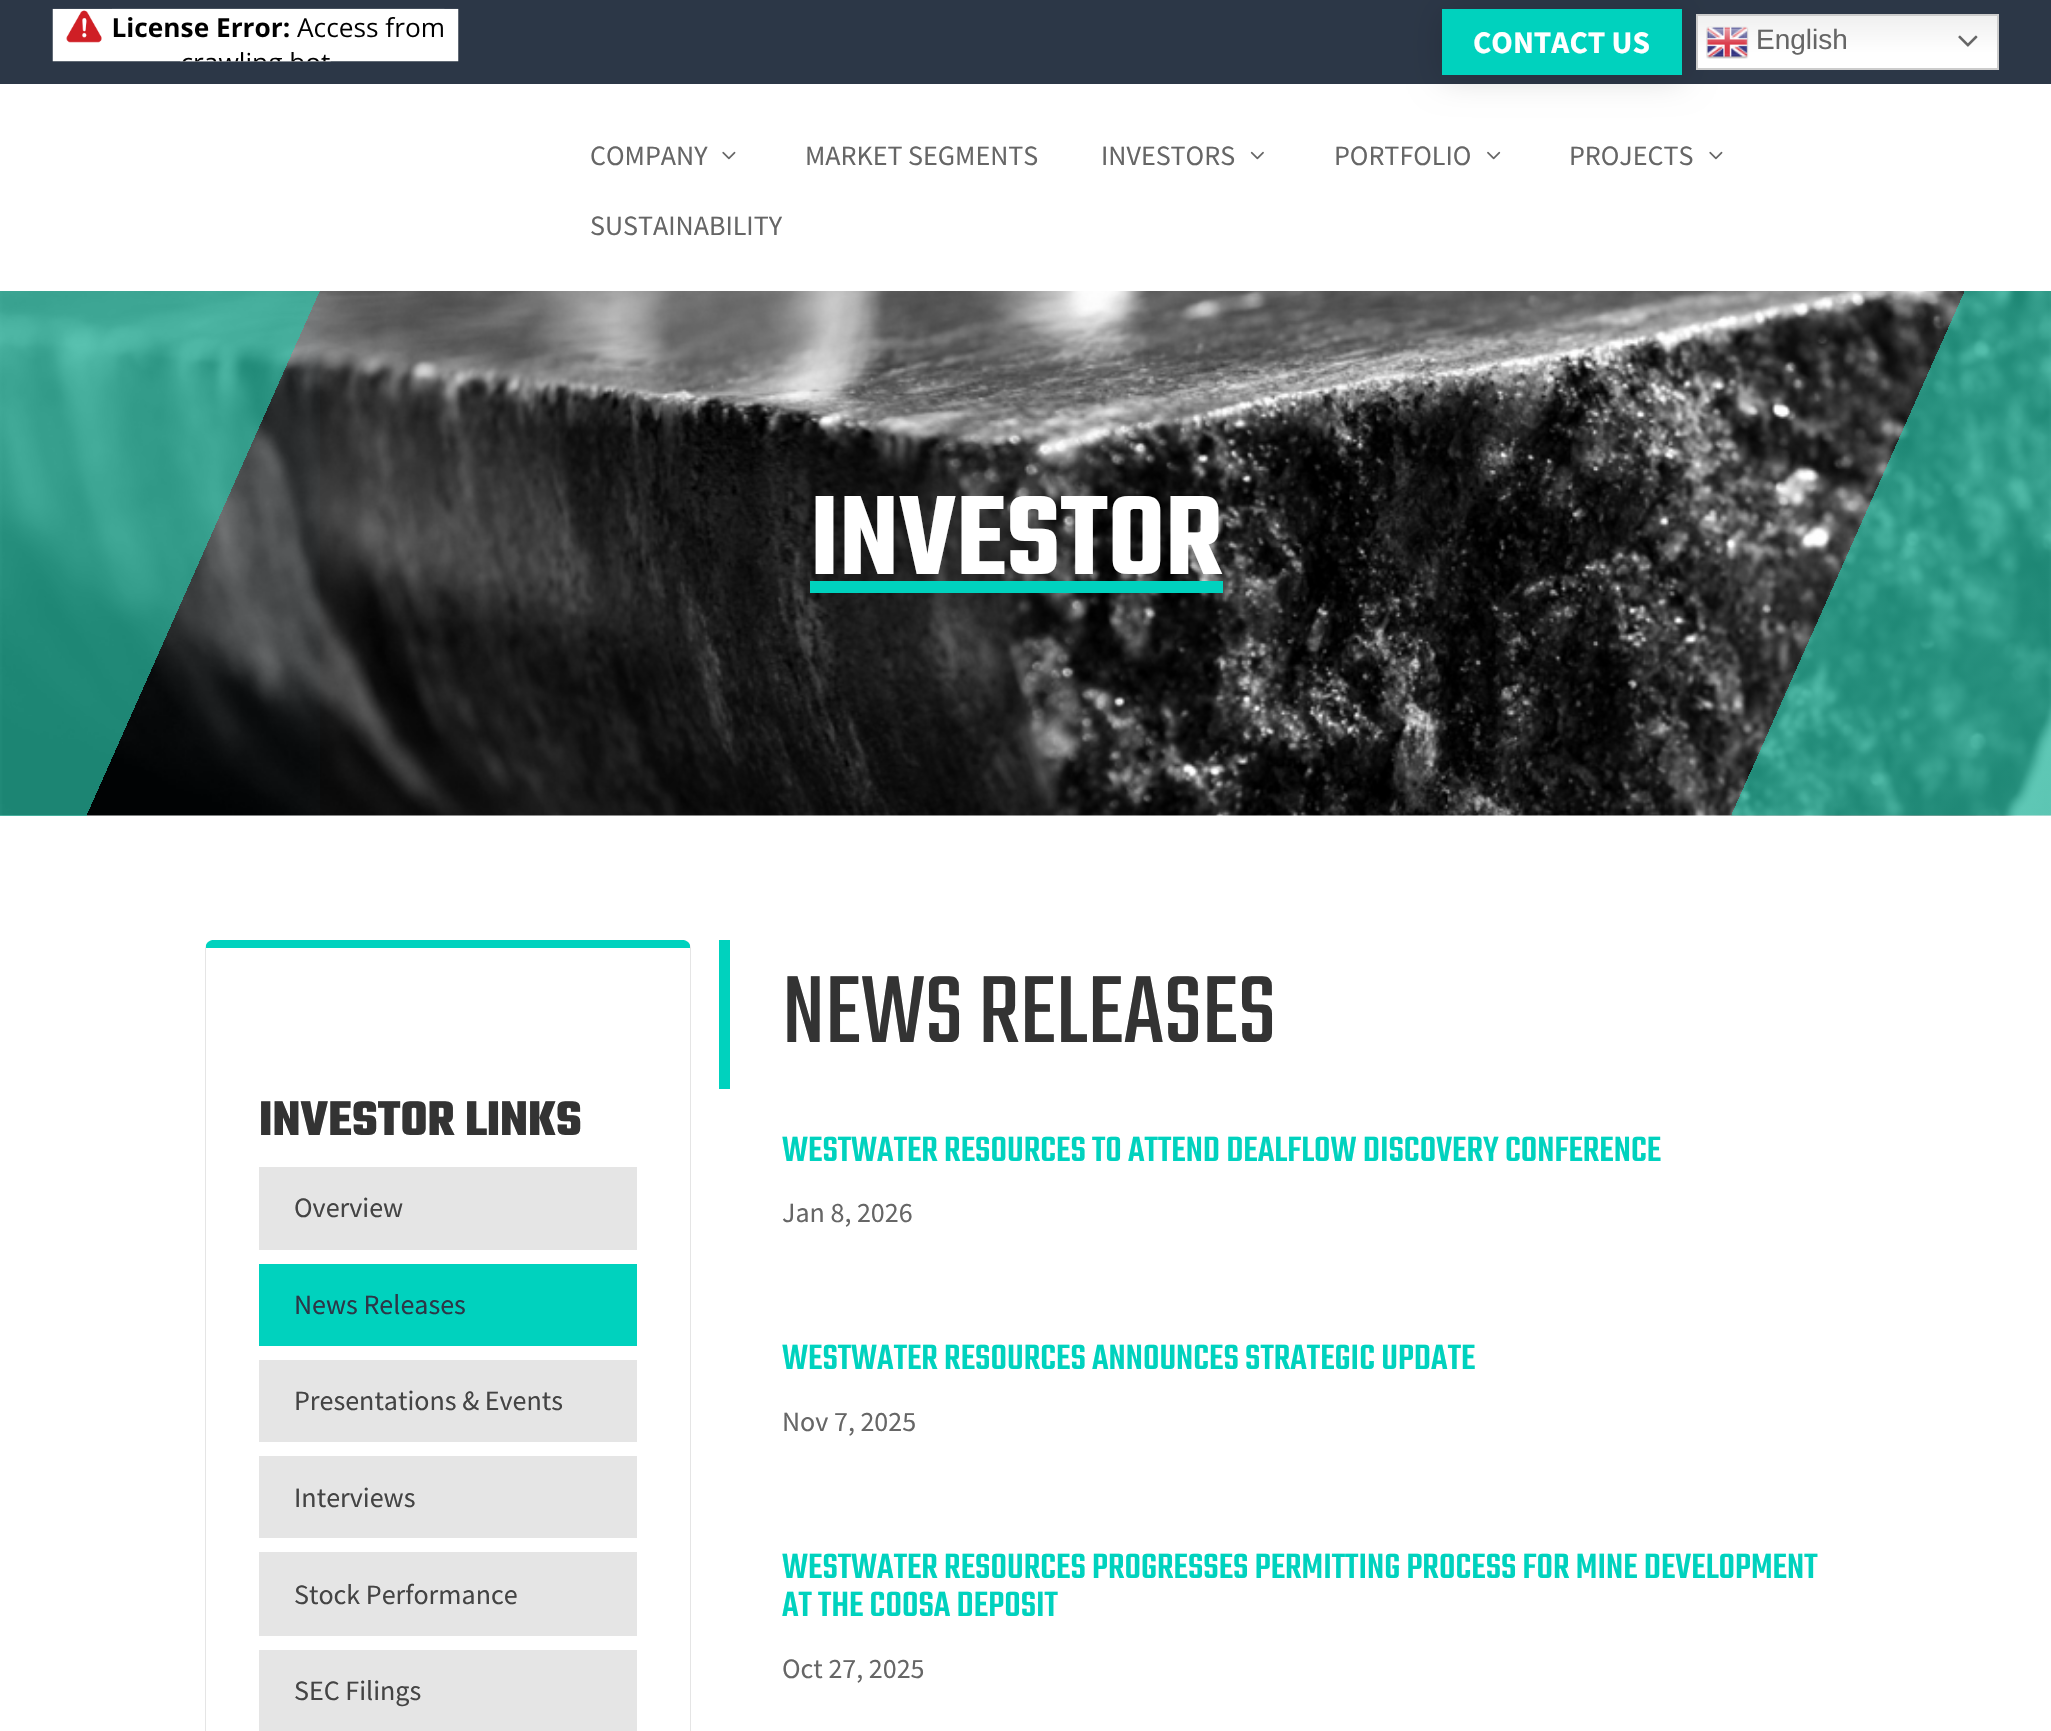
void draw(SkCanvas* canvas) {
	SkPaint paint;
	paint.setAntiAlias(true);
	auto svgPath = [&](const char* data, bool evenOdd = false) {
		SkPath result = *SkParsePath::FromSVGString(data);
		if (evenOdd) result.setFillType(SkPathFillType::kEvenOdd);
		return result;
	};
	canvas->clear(0xffffffff);
	paint.setColor(0xff2c3747);
	canvas->drawRect(SkRect::MakeXYWH(0, 0, 2051, 84), paint);
	canvas->drawImageRect(SkImages::DeferredFromEncodedData(SkData::MakeFromFileName("img1.png")), SkRect::MakeXYWH(52, 8, 407, 54), SkSamplingOptions());
	paint.setColor(0x26000000);
	paint.setMaskFilter(SkMaskFilter::MakeBlur(kNormal_SkBlurStyle, 16));
	canvas->drawRect(SkRect::MakeXYWH(1442, 12, 240, 67), paint);
	paint.setMaskFilter(nullptr);
	paint.setColor(0xff00d2be);
	canvas->drawRect(SkRect::MakeXYWH(1442, 9, 240, 66), paint);
	SkFont f1(fontMgr->matchFamilyStyle("Source Sans Pro", SkFontStyle::Bold()), 31.5);
	f1.setSubpixel(true);
	paint.setColor(0xffffffff);
	canvas->drawString("CONTACT US", 1473, 53, f1, paint);
	{
		const SkColor colors[] = {0xffefefef, 0xffffffff};
		const float stops[] = {0, 0.7};
		const SkPoint ends[] = {{1847, 14}, {1847, 70}};
		paint.setShader(SkGradientShader::MakeLinear(ends, colors, stops, 2, SkTileMode::kClamp));
		paint.setAlpha(255);
	}
	canvas->drawRect(SkRect::MakeXYWH(1698, 16, 299, 52), paint);
	paint.setStroke(true);
	paint.setStrokeWidth(2);
	paint.setShader(nullptr);
	paint.setColor(0xffcccccc);
	canvas->drawRect(SkRect::MakeXYWH(1697, 15, 301, 54), paint);
	canvas->drawImageRect(SkImages::DeferredFromEncodedData(SkData::MakeFromFileName("img2.png")), SkRect::MakeXYWH(1706, 26, 43, 33), SkSamplingOptions());
	SkFont f2(fontMgr->matchFamilyStyle("Liberation Sans", SkFontStyle::Normal()), 28);
	f2.setSubpixel(true);
	paint.setStroke(false);
	paint.setColor(0xff666666);
	canvas->drawString("English", 1756, 49, f2, paint);
	canvas->drawImageRect(SkImages::DeferredFromEncodedData(SkData::MakeFromFileName("img3.png")), SkRect::MakeXYWH(1958, 35, 20, 12), SkSamplingOptions());
	SkFont f3(fontMgr->matchFamilyStyle("Source Sans Pro", SkFontStyle::Normal()), 28);
	f3.setSubpixel(true);
	canvas->drawString("COMPANY", 590, 165, f3, paint);
	canvas->drawImageRect(SkImages::DeferredFromEncodedData(SkData::MakeFromFileName("img4.png")), SkRect::MakeXYWH(722, 151, 14, 9), SkSamplingOptions());
	canvas->drawString("MARKET SEGMENTS", 805, 165, f3, paint);
	canvas->drawString("INVESTORS", 1101, 165, f3, paint);
	canvas->drawImageRect(SkImages::DeferredFromEncodedData(SkData::MakeFromFileName("img5.png")), SkRect::MakeXYWH(1250, 151, 14, 9), SkSamplingOptions());
	canvas->drawString("PORTFOLIO", 1334, 165, f3, paint);
	canvas->drawImageRect(SkImages::DeferredFromEncodedData(SkData::MakeFromFileName("img6.png")), SkRect::MakeXYWH(1487, 151, 14, 9), SkSamplingOptions());
	canvas->drawString("PROJECTS", 1569, 165, f3, paint);
	canvas->drawImageRect(SkImages::DeferredFromEncodedData(SkData::MakeFromFileName("img4.png")), SkRect::MakeXYWH(1709, 151, 14, 9), SkSamplingOptions());
	canvas->drawString("SUSTAINABILITY", 590, 235, f3, paint);
	canvas->drawImageRect(SkImages::DeferredFromEncodedData(SkData::MakeFromFileName("img7.png")), SkRect::MakeXYWH(0, 291, 2051, 525), SkSamplingOptions());
	{
		const SkColor colors[] = {0x052b87da, 0xad29c4a9};
		const float stops[] = {0.86, 0.86};
		const SkPoint ends[] = {{1979, 977}, {72, 129}};
		paint.setShader(SkGradientShader::MakeLinear(ends, colors, stops, 2, SkTileMode::kClamp));
		paint.setAlpha(255);
	}
	canvas->drawRect(SkRect::MakeXYWH(0, 291, 320, 525), paint);
	SkFont f4(fontMgr->matchFamilyStyle("Teko", SkFontStyle(600, SkFontStyle::kNormal_Width, SkFontStyle::kUpright_Slant)), 122.5);
	f4.setSubpixel(true);
	paint.setShader(nullptr);
	paint.setColor(0xffffffff);
	canvas->drawString("INVESTOR", 810, 574, f4, paint);
	paint.setColor(0xff00d2be);
	canvas->drawRect(SkRect::MakeXYWH(810, 581, 413, 12), paint);
	canvas->drawPath(svgPath("M214 940C210 940 207 942 206 945V948H690V945C689 942 686 940 682 940Z"), paint);
	paint.setColor(0xffe5e5e5);
	canvas->drawPath(svgPath("M690 945L691 948V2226C691 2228 690 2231 689 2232L688 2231C689 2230 690 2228 690 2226V948Z"), paint);
	canvas->drawPath(svgPath("M206 945L205 948V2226C205 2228 206 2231 207 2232L208 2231C207 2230 206 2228 206 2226V948Z"), paint);
	SkFont f5(fontMgr->matchFamilyStyle("Teko", SkFontStyle::Bold()), 52.5);
	f5.setSubpixel(true);
	paint.setColor(0xff333333);
	canvas->drawString("INVESTOR LINKS", 259, 1135, f5, paint);
	paint.setColor(0xffe5e5e5);
	canvas->drawRect(SkRect::MakeXYWH(259, 1167, 378, 83), paint);
	paint.setColor(0xff444444);
	canvas->drawString("Overview", 294, 1217, f3, paint);
	paint.setColor(0xff00d2be);
	canvas->drawRect(SkRect::MakeXYWH(259, 1264, 378, 82), paint);
	paint.setColor(0xff2c3747);
	canvas->drawString("News Releases", 294, 1314, f3, paint);
	paint.setColor(0xffe5e5e5);
	canvas->drawRect(SkRect::MakeXYWH(259, 1360, 378, 82), paint);
	paint.setColor(0xff444444);
	canvas->drawString("Presentations & Events", 294, 1410, f3, paint);
	paint.setColor(0xffe5e5e5);
	canvas->drawRect(SkRect::MakeXYWH(259, 1456, 378, 82), paint);
	paint.setColor(0xff444444);
	canvas->drawString("Interviews", 294, 1507, f3, paint);
	paint.setColor(0xffe5e5e5);
	canvas->drawRect(SkRect::MakeXYWH(259, 1552, 378, 84), paint);
	paint.setColor(0xff444444);
	canvas->drawString("Stock Performance", 294, 1604, f3, paint);
	paint.setColor(0xffe5e5e5);
	canvas->drawRect(SkRect::MakeXYWH(259, 1650, 378, 81), paint);
	paint.setColor(0xff444444);
	canvas->drawString("SEC Filings", 294, 1700, f3, paint);
	paint.setColor(0xff00d2be);
	canvas->drawRect(SkRect::MakeXYWH(719, 940, 11, 149), paint);
	SkFont f6(fontMgr->matchFamilyStyle("Teko", SkFontStyle::Normal()), 105);
	f6.setSubpixel(true);
	paint.setColor(0xff333333);
	canvas->drawString("NEWS RELEASES", 782, 1042, f6, paint);
	SkFont f7(fontMgr->matchFamilyStyle("Teko", SkFontStyle(500, SkFontStyle::kNormal_Width, SkFontStyle::kUpright_Slant)), 38.5);
	f7.setSubpixel(true);
	paint.setColor(0xff00d2be);
	canvas->drawString("WESTWATER RESOURCES TO ATTEND DEALFLOW DISCOVERY CONFERENCE", 782, 1161, f7, paint);
	paint.setColor(0xff666666);
	canvas->drawString("Jan 8, 2026", 782, 1222, f3, paint);
	paint.setColor(0xff00d2be);
	canvas->drawString("WESTWATER RESOURCES ANNOUNCES STRATEGIC UPDATE", 782, 1369, f7, paint);
	paint.setColor(0xff666666);
	canvas->drawString("Nov 7, 2025", 782, 1431, f3, paint);
	paint.setColor(0xff00d2be);
	canvas->drawString("WESTWATER RESOURCES PROGRESSES PERMITTING PROCESS FOR MINE DEVELOPMENT", 782, 1578, f7, paint);
	canvas->drawString("AT THE COOSA DEPOSIT", 782, 1616, f7, paint);
	paint.setColor(0xff666666);
	canvas->drawString("Oct 27, 2025", 782, 1678, f3, paint);
}
